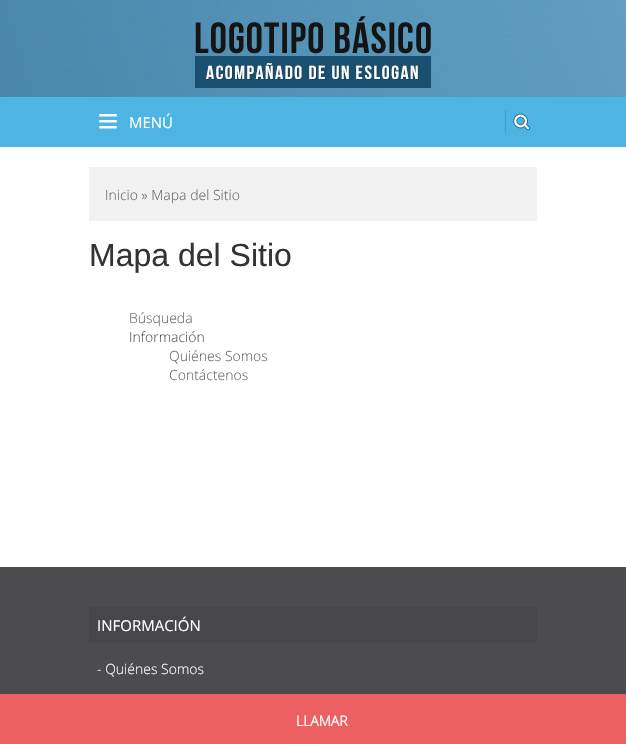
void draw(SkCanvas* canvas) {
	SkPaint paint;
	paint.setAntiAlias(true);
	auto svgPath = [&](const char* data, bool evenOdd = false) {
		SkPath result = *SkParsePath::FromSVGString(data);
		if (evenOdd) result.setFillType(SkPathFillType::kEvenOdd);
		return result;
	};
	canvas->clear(0xffffffff);
	canvas->drawImageRect(SkImages::DeferredFromEncodedData(SkData::MakeFromFileName("img1.png")), SkRect::MakeXYWH(0, 0, 626, 97), SkSamplingOptions());
	canvas->drawImageRect(SkImages::DeferredFromEncodedData(SkData::MakeFromFileName("img2.png")), SkRect::MakeXYWH(195, 16, 236, 72), SkSamplingOptions());
	paint.setColor(0xff4db4e4);
	canvas->drawRect(SkRect::MakeXYWH(0, 97, 626, 50), paint);
	paint.setColor(0xffa6daf2);
	canvas->drawPath(svgPath("M99 115.5C98 117.5 102.5 117 102.5 117H113.5C113.5 117 118 117.5 117 115.5C116 116.5 109.5 116 108 116C106.5 116 100 116.5 99 115.5Z"), paint);
	paint.setColor(0xffffffff);
	canvas->drawRoundRect(SkRect::MakeXYWH(99, 114, 18, 2), 1, 1, paint);
	SkFont f1(fontMgr->matchFamilyStyle("Open Sans", SkFontStyle::Normal()), 15);
	f1.setSubpixel(true);
	canvas->drawString("MENÚ", 129, 128, f1, paint);
	paint.setColor(0xffa6daf2);
	canvas->drawPath(svgPath("M99 121.5C98 123.5 102.5 123 102.5 123H113.5C113.5 123 118 123.5 117 121.5C116 122.5 109.5 122 108 122C106.5 122 100 122.5 99 121.5Z"), paint);
	paint.setColor(0xffffffff);
	canvas->drawRoundRect(SkRect::MakeXYWH(99, 120, 18, 2), 1, 1, paint);
	paint.setColor(0xffa6daf2);
	canvas->drawPath(svgPath("M99 127.5C98 129.5 102.5 129 102.5 129H113.5C113.5 129 118 129.5 117 127.5C116 128.5 109.5 128 108 128C106.5 128 100 128.5 99 127.5Z"), paint);
	paint.setColor(0xffffffff);
	canvas->drawRoundRect(SkRect::MakeXYWH(99, 126, 18, 2), 1, 1, paint);
	canvas->drawImageRect(SkImages::DeferredFromEncodedData(SkData::MakeFromFileName("img3.png")), SkRect::MakeXYWH(505, 110, 25, 23), SkSamplingOptions());
	paint.setColor(0xfff2f2f2);
	canvas->drawRect(SkRect::MakeXYWH(89, 167, 448, 54), paint);
	SkFont f2(fontMgr->matchFamilyStyle("Open Sans", SkFontStyle(300, SkFontStyle::kNormal_Width, SkFontStyle::kUpright_Slant)), 14);
	f2.setSubpixel(true);
	paint.setColor(0xff666666);
	canvas->drawString("Inicio » Mapa del Sitio", 105, 200, f2, paint);
	SkFont f3(fontMgr->matchFamilyStyle("Liberation Sans", SkFontStyle::Normal()), 32);
	f3.setSubpixel(true);
	paint.setColor(0xff333333);
	canvas->drawString("Mapa del Sitio", 89, 266, f3, paint);
	paint.setColor(0xff666666);
	canvas->drawString("Búsqueda", 129, 323, f2, paint);
	paint.setColor(0xff555555);
	canvas->drawString("Información", 129, 342, f2, paint);
	paint.setColor(0xff666666);
	canvas->drawString("Quiénes Somos", 169, 361, f2, paint);
	canvas->drawString("Contáctenos", 169, 380, f2, paint);
	paint.setColor(0xff4c4c4e);
	canvas->drawRect(SkRect::MakeXYWH(0, 567, 626, 127), paint);
	paint.setColor(0xff474749);
	canvas->drawRect(SkRect::MakeXYWH(89, 607, 448, 36), paint);
	paint.setColor(0xffffffff);
	canvas->drawString("INFORMACIÓN", 97, 631, f1, paint);
	canvas->drawString("- Quiénes Somos", 97, 674, f2, paint);
	paint.setColor(0xffec6061);
	canvas->drawRect(SkRect::MakeXYWH(0, 694, 626, 50), paint);
	SkFont f4(fontMgr->matchFamilyStyle("Open Sans", SkFontStyle::Bold()), 14);
	f4.setSubpixel(true);
	paint.setColor(0xffffffff);
	canvas->drawString("LLAMAR", 296, 726, f4, paint);
}
